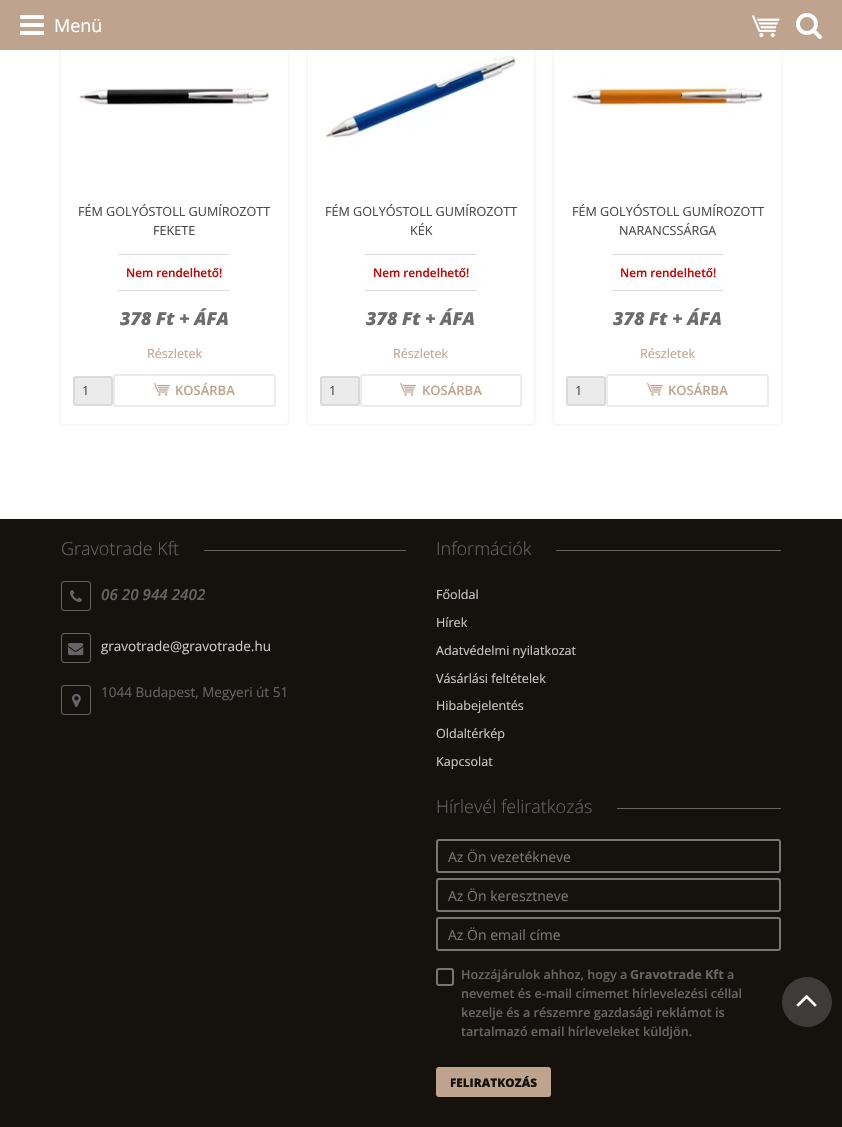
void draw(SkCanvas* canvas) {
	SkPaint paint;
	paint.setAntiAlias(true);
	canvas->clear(0xffffffff);
	paint.setColor(0x0d000000);
	paint.setMaskFilter(SkMaskFilter::MakeBlur(kNormal_SkBlurStyle, 1.5));
	canvas->drawRoundRect(SkRect::MakeXYWH(60, -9, 229, 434), 4, 4, paint);
	paint.setMaskFilter(nullptr);
	paint.setColor(0xffffffff);
	canvas->drawRoundRect(SkRect::MakeXYWH(61, -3, 227, 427), 3, 3, paint);
	paint.setColor(0x0d000000);
	paint.setMaskFilter(SkMaskFilter::MakeBlur(kNormal_SkBlurStyle, 1.5));
	canvas->drawRoundRect(SkRect::MakeXYWH(307, -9, 228, 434), 4, 4, paint);
	paint.setMaskFilter(nullptr);
	paint.setColor(0xffffffff);
	canvas->drawRoundRect(SkRect::MakeXYWH(308, -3, 226, 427), 3, 3, paint);
	paint.setColor(0x0d000000);
	paint.setMaskFilter(SkMaskFilter::MakeBlur(kNormal_SkBlurStyle, 1.5));
	canvas->drawRoundRect(SkRect::MakeXYWH(553, -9, 229, 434), 4, 4, paint);
	paint.setMaskFilter(nullptr);
	paint.setColor(0xffffffff);
	canvas->drawRoundRect(SkRect::MakeXYWH(554, -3, 227, 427), 3, 3, paint);
	paint.setColor(0xffbea48e);
	canvas->drawRect(SkRect::MakeXYWH(0, 0, 842, 50), paint);
	canvas->drawImageRect(SkImages::DeferredFromEncodedData(SkData::MakeFromFileName("img1.png")), SkRect::MakeXYWH(20, 15, 24, 20), SkSamplingOptions());
	SkFont f1(fontMgr->matchFamilyStyle("Open Sans", SkFontStyle::Normal()), 18);
	f1.setSubpixel(true);
	paint.setColor(0xffffffff);
	canvas->drawString("Menü", 54, 32, f1, paint);
	canvas->drawImageRect(SkImages::DeferredFromEncodedData(SkData::MakeFromFileName("img2.png")), SkRect::MakeXYWH(752, 15, 28, 23), SkSamplingOptions());
	canvas->drawImageRect(SkImages::DeferredFromEncodedData(SkData::MakeFromFileName("img3.png")), SkRect::MakeXYWH(796, 13, 26, 26), SkSamplingOptions());
	canvas->drawImageRect(SkImages::DeferredFromEncodedData(SkData::MakeFromFileName("img4.png")), SkRect::MakeXYWH(79, 88, 191, 18), SkSamplingOptions());
	SkFont f2(fontMgr->matchFamilyStyle("Open Sans", SkFontStyle::Normal()), 12.6);
	f2.setSubpixel(true);
	paint.setColor(0xff4a4a4a);
	canvas->drawString("FÉM GOLYÓSTOLL GUMÍROZOTT", 78, 216, f2, paint);
	canvas->drawString("FEKETE", 153, 235, f2, paint);
	paint.setColor(0xffdbdbdb);
	canvas->drawRect(SkRect::MakeXYWH(118, 254, 112, 1), paint);
	canvas->drawRect(SkRect::MakeXYWH(118, 290, 112, 1), paint);
	SkFont f3(fontMgr->matchFamilyStyle("Open Sans", SkFontStyle(600, SkFontStyle::kNormal_Width, SkFontStyle::kUpright_Slant)), 11.75);
	f3.setSubpixel(true);
	paint.setColor(0xffc80000);
	canvas->drawString("Nem rendelhető!", 126, 277, f3, paint);
	SkFont f4(fontMgr->matchFamilyStyle("Open Sans", SkFontStyle(800, SkFontStyle::kNormal_Width, SkFontStyle::kItalic_Slant)), 18);
	f4.setSubpixel(true);
	paint.setColor(0xff6c6c6c);
	canvas->drawString("378 Ft + ÁFA", 120, 325, f4, paint);
	paint.setColor(0xffbea48e);
	canvas->drawString("Részletek", 147, 358, f2, paint);
	paint.setColor(0xffebebeb);
	canvas->drawRoundRect(SkRect::MakeXYWH(74, 377, 38, 28), 2, 2, paint);
	paint.setStroke(true);
	paint.setStrokeWidth(2);
	paint.setColor(0xffdadada);
	canvas->drawRoundRect(SkRect::MakeXYWH(74, 377, 38, 28), 2, 2, paint);
	paint.setStroke(false);
	paint.setColor(0xff4a4a4a);
	canvas->drawString("1", 82, 395, f2, paint);
	paint.setStroke(true);
	paint.setColor(0xffebebeb);
	canvas->drawRoundRect(SkRect::MakeXYWH(114, 375, 161, 31), 2, 2, paint);
	canvas->drawImageRect(SkImages::DeferredFromEncodedData(SkData::MakeFromFileName("img5.png")), SkRect::MakeXYWH(154, 383, 16, 13), SkSamplingOptions());
	SkFont f5(fontMgr->matchFamilyStyle("Open Sans", SkFontStyle(600, SkFontStyle::kNormal_Width, SkFontStyle::kUpright_Slant)), 13);
	f5.setSubpixel(true);
	paint.setStroke(false);
	paint.setColor(0xffbea48e);
	canvas->drawString("KOSÁRBA", 175, 395, f5, paint);
	canvas->drawImageRect(SkImages::DeferredFromEncodedData(SkData::MakeFromFileName("img6.png")), SkRect::MakeXYWH(326, 55, 190, 83), SkSamplingOptions());
	paint.setColor(0xff4a4a4a);
	canvas->drawString("FÉM GOLYÓSTOLL GUMÍROZOTT", 325, 216, f2, paint);
	canvas->drawString("KÉK", 410, 235, f2, paint);
	paint.setColor(0xffdbdbdb);
	canvas->drawRect(SkRect::MakeXYWH(365, 254, 112, 1), paint);
	canvas->drawRect(SkRect::MakeXYWH(365, 290, 112, 1), paint);
	paint.setColor(0xffc80000);
	canvas->drawString("Nem rendelhető!", 373, 277, f3, paint);
	paint.setColor(0xff6c6c6c);
	canvas->drawString("378 Ft + ÁFA", 366, 325, f4, paint);
	paint.setColor(0xffbea48e);
	canvas->drawString("Részletek", 393, 358, f2, paint);
	paint.setColor(0xffebebeb);
	canvas->drawRoundRect(SkRect::MakeXYWH(321, 377, 38, 28), 2, 2, paint);
	paint.setStroke(true);
	paint.setColor(0xffdadada);
	canvas->drawRoundRect(SkRect::MakeXYWH(321, 377, 38, 28), 2, 2, paint);
	paint.setStroke(false);
	paint.setColor(0xff4a4a4a);
	canvas->drawString("1", 329, 395, f2, paint);
	paint.setStroke(true);
	paint.setColor(0xffebebeb);
	canvas->drawRoundRect(SkRect::MakeXYWH(361, 375, 160, 31), 2, 2, paint);
	canvas->drawImageRect(SkImages::DeferredFromEncodedData(SkData::MakeFromFileName("img5.png")), SkRect::MakeXYWH(400, 383, 16, 13), SkSamplingOptions());
	paint.setStroke(false);
	paint.setColor(0xffbea48e);
	canvas->drawString("KOSÁRBA", 422, 395, f5, paint);
	canvas->drawImageRect(SkImages::DeferredFromEncodedData(SkData::MakeFromFileName("img7.png")), SkRect::MakeXYWH(571, 87, 192, 20), SkSamplingOptions());
	paint.setColor(0xff4a4a4a);
	canvas->drawString("FÉM GOLYÓSTOLL GUMÍROZOTT", 572, 216, f2, paint);
	canvas->drawString("NARANCSSÁRGA", 619, 235, f2, paint);
	paint.setColor(0xffdbdbdb);
	canvas->drawRect(SkRect::MakeXYWH(612, 254, 111, 1), paint);
	canvas->drawRect(SkRect::MakeXYWH(612, 290, 111, 1), paint);
	paint.setColor(0xffc80000);
	canvas->drawString("Nem rendelhető!", 620, 277, f3, paint);
	paint.setColor(0xff6c6c6c);
	canvas->drawString("378 Ft + ÁFA", 613, 325, f4, paint);
	paint.setColor(0xffbea48e);
	canvas->drawString("Részletek", 640, 358, f2, paint);
	paint.setColor(0xffebebeb);
	canvas->drawRoundRect(SkRect::MakeXYWH(567, 377, 38, 28), 2, 2, paint);
	paint.setStroke(true);
	paint.setColor(0xffdadada);
	canvas->drawRoundRect(SkRect::MakeXYWH(567, 377, 38, 28), 2, 2, paint);
	paint.setStroke(false);
	paint.setColor(0xff4a4a4a);
	canvas->drawString("1", 575, 395, f2, paint);
	paint.setStroke(true);
	paint.setColor(0xffebebeb);
	canvas->drawRoundRect(SkRect::MakeXYWH(607, 375, 161, 31), 2, 2, paint);
	canvas->drawImageRect(SkImages::DeferredFromEncodedData(SkData::MakeFromFileName("img5.png")), SkRect::MakeXYWH(647, 383, 16, 13), SkSamplingOptions());
	paint.setStroke(false);
	paint.setColor(0xffbea48e);
	canvas->drawString("KOSÁRBA", 668, 395, f5, paint);
	paint.setColor(0xff15120e);
	canvas->drawRect(SkRect::MakeXYWH(0, 519, 842, 608), paint);
	SkFont f6(fontMgr->matchFamilyStyle("Open Sans", SkFontStyle(300, SkFontStyle::kNormal_Width, SkFontStyle::kUpright_Slant)), 18);
	f6.setSubpixel(true);
	paint.setColor(0xff656565);
	canvas->drawString("Gravotrade Kft", 61, 555, f6, paint);
	canvas->drawRect(SkRect::MakeXYWH(204, 550, 202, 1), paint);
	paint.setStroke(true);
	paint.setStrokeWidth(1);
	canvas->drawRoundRect(SkRect::MakeXYWH(61.5, 581.5, 29, 29), 2.5, 2.5, paint);
	canvas->drawImageRect(SkImages::DeferredFromEncodedData(SkData::MakeFromFileName("img8.png")), SkRect::MakeXYWH(70, 590, 12, 12), SkSamplingOptions());
	SkFont f7(fontMgr->matchFamilyStyle("Open Sans", SkFontStyle(600, SkFontStyle::kNormal_Width, SkFontStyle::kItalic_Slant)), 15.25);
	f7.setSubpixel(true);
	paint.setStroke(false);
	canvas->drawString("06 20 944 2402", 101, 600, f7, paint);
	paint.setStroke(true);
	canvas->drawRoundRect(SkRect::MakeXYWH(61.5, 633.5, 29, 29), 2.5, 2.5, paint);
	canvas->drawImageRect(SkImages::DeferredFromEncodedData(SkData::MakeFromFileName("img9.png")), SkRect::MakeXYWH(68, 643, 16, 13), SkSamplingOptions());
	SkFont f8(fontMgr->matchFamilyStyle("Open Sans", SkFontStyle::Normal()), 13.5);
	f8.setSubpixel(true);
	paint.setStroke(false);
	paint.setColor(0xffc8c8c8);
	canvas->drawString("gravotrade@gravotrade.hu", 101, 651, f8, paint);
	paint.setStroke(true);
	paint.setColor(0xff656565);
	canvas->drawRoundRect(SkRect::MakeXYWH(61.5, 685.5, 29, 29), 2.5, 2.5, paint);
	canvas->drawImageRect(SkImages::DeferredFromEncodedData(SkData::MakeFromFileName("img10.png")), SkRect::MakeXYWH(72, 694, 9, 13), SkSamplingOptions());
	paint.setStroke(false);
	canvas->drawString("1044 Budapest, Megyeri út 51", 101, 697, f8, paint);
	canvas->drawString("Információk", 436, 555, f6, paint);
	canvas->drawRect(SkRect::MakeXYWH(556, 550, 225, 1), paint);
	paint.setColor(0xffc8c8c8);
	canvas->drawString("Főoldal", 436, 599, f2, paint);
	canvas->drawString("Hírek", 436, 627, f2, paint);
	canvas->drawString("Adatvédelmi nyilatkozat", 436, 655, f2, paint);
	canvas->drawString("Vásárlási feltételek", 436, 683, f2, paint);
	canvas->drawString("Hibabejelentés", 436, 710, f2, paint);
	canvas->drawString("Oldaltérkép", 436, 738, f2, paint);
	canvas->drawString("Kapcsolat", 436, 766, f2, paint);
	paint.setColor(0xff656565);
	canvas->drawString("Hírlevél feliratkozás", 436, 813, f6, paint);
	canvas->drawRect(SkRect::MakeXYWH(617, 808, 164, 1), paint);
	paint.setStroke(true);
	paint.setStrokeWidth(2);
	paint.setColor(0xff787575);
	canvas->drawRoundRect(SkRect::MakeXYWH(437, 840, 343, 32), 2, 2, paint);
	SkFont f9(fontMgr->matchFamilyStyle("Open Sans", SkFontStyle::Normal()), 14);
	f9.setSubpixel(true);
	paint.setStroke(false);
	canvas->drawString("Az Ön vezetékneve", 448, 862, f9, paint);
	paint.setStroke(true);
	canvas->drawRoundRect(SkRect::MakeXYWH(437, 879, 343, 32), 2, 2, paint);
	paint.setStroke(false);
	canvas->drawString("Az Ön keresztneve", 448, 901, f9, paint);
	paint.setStroke(true);
	canvas->drawRoundRect(SkRect::MakeXYWH(437, 918, 343, 32), 2, 2, paint);
	paint.setStroke(false);
	canvas->drawString("Az Ön email címe", 448, 940, f9, paint);
	paint.setStroke(true);
	canvas->drawRoundRect(SkRect::MakeXYWH(437, 969, 16, 16), 2, 2, paint);
	SkFont f10(fontMgr->matchFamilyStyle("Open Sans", SkFontStyle(600, SkFontStyle::kNormal_Width, SkFontStyle::kUpright_Slant)), 12.6);
	f10.setSubpixel(true);
	paint.setStroke(false);
	paint.setColor(0xff656565);
	canvas->drawString("Hozzájárulok ahhoz, hogy a", 461, 979, f10, paint);
	SkFont f11(fontMgr->matchFamilyStyle("Open Sans", SkFontStyle::Bold()), 12.6);
	f11.setSubpixel(true);
	canvas->drawString("Gravotrade Kft", 630, 979, f11, paint);
	canvas->drawString("a", 727, 979, f10, paint);
	canvas->drawString("nevemet és e-mail címemet hírlevelezési céllal", 461, 998, f10, paint);
	canvas->drawString("kezelje és a részemre gazdasági reklámot is", 461, 1017, f10, paint);
	canvas->drawString("tartalmazó email hírleveleket küldjön.", 461, 1036, f10, paint);
	paint.setColor(0xffbea48e);
	canvas->drawRoundRect(SkRect::MakeXYWH(437, 1068, 113, 28), 2, 2, paint);
	paint.setStroke(true);
	canvas->drawRoundRect(SkRect::MakeXYWH(437, 1068, 113, 28), 2, 2, paint);
	SkFont f12(fontMgr->matchFamilyStyle("Open Sans", SkFontStyle(800, SkFontStyle::kNormal_Width, SkFontStyle::kUpright_Slant)), 11.75);
	f12.setSubpixel(true);
	paint.setStroke(false);
	paint.setColor(0xff15120e);
	canvas->drawString("FELIRATKOZÁS", 450, 1087, f12, paint);
	paint.setColor(0xff3d3c3a);
	canvas->drawCircle(807, 1002, 25, paint);
	canvas->drawImageRect(SkImages::DeferredFromEncodedData(SkData::MakeFromFileName("img11.png")), SkRect::MakeXYWH(796, 995, 21, 12), SkSamplingOptions());
}
